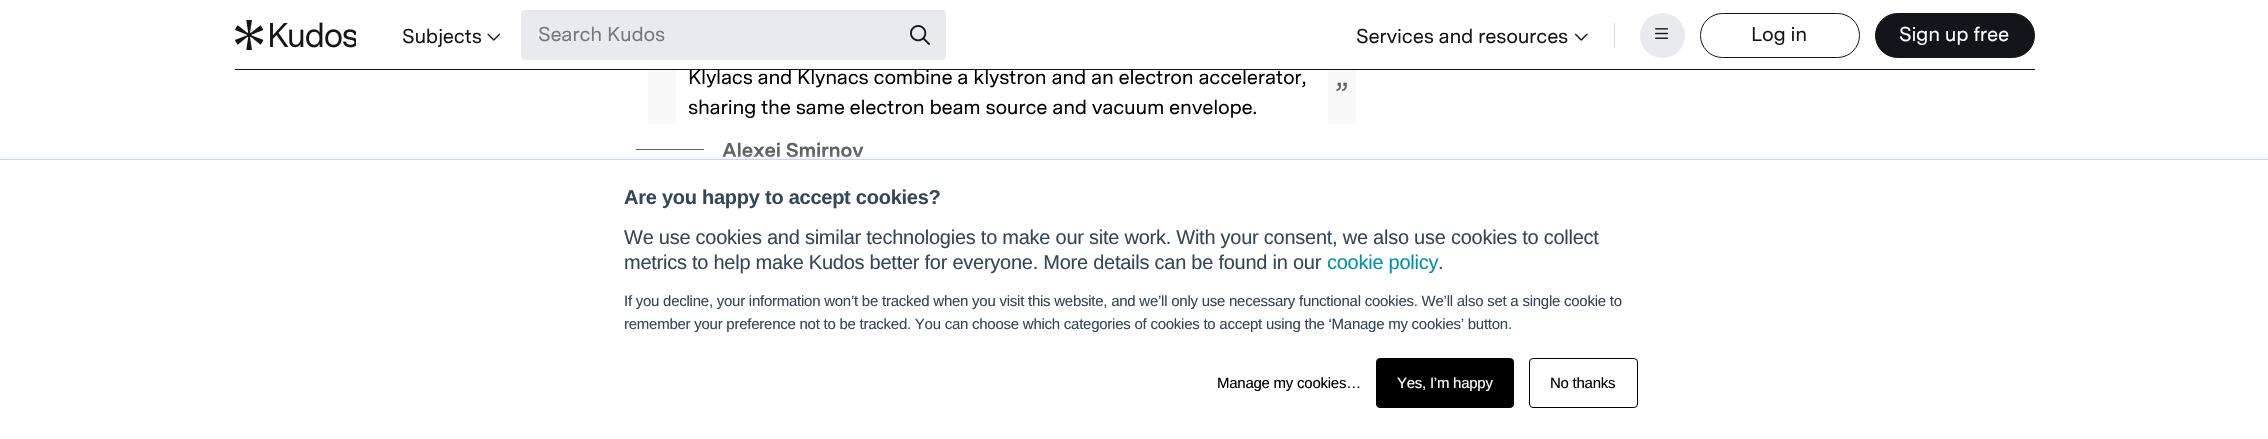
void draw(SkCanvas* canvas) {
	SkPaint paint;
	paint.setAntiAlias(true);
	auto spacedText = [&](const char* s, float x, float y, const SkFont& font, const SkPaint& ink, float letter, float word) {
		std::vector<SkGlyphID> glyphs(font.countText(s, strlen(s), SkTextEncoding::kUTF8));
		std::vector<float> xs(glyphs.size());
		font.textToGlyphs(s, strlen(s), SkTextEncoding::kUTF8, glyphs);
		font.getXPos(glyphs, xs, x);
		float extra = 0;
		for (size_t i = 0; i < glyphs.size(); i++) {
			xs[i] += extra;
			extra += letter + word * (glyphs[i] == font.unicharToGlyph(' '));
		}
		canvas->drawTextBlob(SkTextBlob::MakeFromPosHGlyphs(glyphs, xs, y, font), 0, 0, ink);
	};
	canvas->clear(0xffffffff);
	SkFont f1(fontMgr->matchFamilyStyle("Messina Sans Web", SkFontStyle::Normal()), 20);
	f1.setSubpixel(true);
	paint.setColor(0xff000000);
	spacedText("Klylacs and Klynacs combine a klystron and an electron accelerator,", 688, 84, f1, paint, -0.25, 0);
	paint.setColor(0xffffffff);
	canvas->drawRect(SkRect::MakeXYWH(702, 69, 544, 1), paint);
	paint.setColor(0xff14141b);
	canvas->drawRect(SkRect::MakeXYWH(235, 69, 1800, 1), paint);
	canvas->drawImageRect(SkImages::DeferredFromEncodedData(SkData::MakeFromFileName("img1.png")), SkRect::MakeXYWH(235, 20, 121, 30), SkSamplingOptions());
	spacedText("Subjects", 402, 43, f1, paint, -0.25, 0);
	canvas->drawImageRect(SkImages::DeferredFromEncodedData(SkData::MakeFromFileName("img2.png")), SkRect::MakeXYWH(487, 33, 13, 8), SkSamplingOptions());
	paint.setColor(0xffe8eaed);
	canvas->drawRoundRect(SkRect::MakeXYWH(521, 10, 425, 50), 4, 4, paint);
	paint.setColor(0xff76767c);
	spacedText("Search Kudos", 538, 41, f1, paint, -0.25, 0);
	canvas->drawImageRect(SkImages::DeferredFromEncodedData(SkData::MakeFromFileName("img3.png")), SkRect::MakeXYWH(910, 25, 20, 20), SkSamplingOptions());
	paint.setColor(0xff14141b);
	spacedText("Services and resources", 1356, 43, f1, paint, -0.25, 0);
	canvas->drawImageRect(SkImages::DeferredFromEncodedData(SkData::MakeFromFileName("img4.png")), SkRect::MakeXYWH(1575, 33, 13, 8), SkSamplingOptions());
	paint.setColor(0xffd4d7dd);
	canvas->drawRect(SkRect::MakeXYWH(1614, 23, 1, 25), paint);
	paint.setColor(0xffe8eaed);
	canvas->drawCircle(1662.5, 35.5, 22.5, paint);
	canvas->drawImageRect(SkImages::DeferredFromEncodedData(SkData::MakeFromFileName("img5.png")), SkRect::MakeXYWH(1655, 28, 14, 11), SkSamplingOptions());
	paint.setStroke(true);
	paint.setStrokeWidth(1);
	paint.setColor(0xff14141b);
	canvas->drawRoundRect(SkRect::MakeXYWH(1700.5, 13.5, 159, 44), 22, 22, paint);
	paint.setStroke(false);
	spacedText("Log in", 1751, 41, f1, paint, -0.25, 0);
	canvas->drawRoundRect(SkRect::MakeXYWH(1875.5, 13.5, 159, 44), 22, 22, paint);
	paint.setStroke(true);
	canvas->drawRoundRect(SkRect::MakeXYWH(1875.5, 13.5, 159, 44), 22, 22, paint);
	paint.setStroke(false);
	paint.setColor(0xffffffff);
	spacedText("Sign up free", 1899, 41, f1, paint, -0.25, 0);
	paint.setColor(0xfff9f9f9);
	canvas->drawRect(SkRect::MakeXYWH(648, 70, 28, 54), paint);
	paint.setColor(0xff000000);
	spacedText("sharing the same electron beam source and vacuum envelope.", 688, 114, f1, paint, -0.25, 0);
	paint.setColor(0xfff9f9f9);
	canvas->drawRect(SkRect::MakeXYWH(1328, 70, 28, 54), paint);
	SkFont f2(fontMgr->matchFamilyStyle("Messina Sans Web", SkFontStyle::Normal()), 31);
	f2.setSubpixel(true);
	paint.setColor(0xff616161);
	spacedText("”", 1335, 105, f2, paint, -0.25, 0);
	canvas->drawRect(SkRect::MakeXYWH(636, 149, 68, 1), paint);
	SkFont f3(fontMgr->matchFamilyStyle("Messina Sans Web", SkFontStyle::Bold()), 20);
	f3.setSubpixel(true);
	spacedText("Alexei Smirnov", 722, 157, f3, paint, -0.25, 0);
	paint.setColor(0xffeaf0f6);
	paint.setMaskFilter(SkMaskFilter::MakeBlur(kNormal_SkBlurStyle, 2));
	canvas->drawRect(SkRect::MakeXYWH(0, 158, 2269, 281), paint);
	paint.setMaskFilter(nullptr);
	paint.setColor(0xffffffff);
	canvas->drawRect(SkRect::MakeXYWH(0, 160, 2268, 279), paint);
	paint.setColor(0xffcbd6e2);
	canvas->drawRect(SkRect::MakeXYWH(0, 159, 2268, 1), paint);
	SkFont f4(fontMgr->matchFamilyStyle("Liberation Sans", SkFontStyle::Bold()), 20);
	f4.setSubpixel(true);
	paint.setColor(0xff33475b);
	spacedText("Are you happy to accept cookies?", 624, 204, f4, paint, -0.25, 0);
	SkFont f5(fontMgr->matchFamilyStyle("Liberation Sans", SkFontStyle::Normal()), 20);
	f5.setSubpixel(true);
	spacedText("We use cookies and similar technologies to make our site work. With your consent, we also use cookies to collect", 624, 244, f5, paint, -0.25, 0);
	spacedText("metrics to help make Kudos better for everyone. More details can be found in our", 624, 269, f5, paint, -0.25, 0);
	paint.setColor(0xff0091ae);
	spacedText("cookie policy", 1327, 269, f5, paint, -0.25, 0);
	paint.setColor(0xff33475b);
	spacedText(".", 1438, 269, f5, paint, -0.25, 0);
	SkFont f6(fontMgr->matchFamilyStyle("Liberation Sans", SkFontStyle::Normal()), 15);
	f6.setSubpixel(true);
	spacedText("If you decline, your information won’t be tracked when you visit this website, and we’ll only use necessary functional cookies. We’ll also set a single cookie to", 624, 306, f6, paint, -0.25, 0);
	spacedText("remember your preference not to be tracked. You can choose which categories of cookies to accept using the ‘Manage my cookies’ button.", 624, 329, f6, paint, -0.25, 0);
	paint.setColor(0xff000000);
	spacedText("Manage my cookies…", 1217, 388, f6, paint, -0.25, 0);
	canvas->drawRoundRect(SkRect::MakeXYWH(1376.5, 358.5, 137, 49), 3.5, 3.5, paint);
	paint.setStroke(true);
	canvas->drawRoundRect(SkRect::MakeXYWH(1376.5, 358.5, 137, 49), 3.5, 3.5, paint);
	paint.setStroke(false);
	paint.setColor(0xffffffff);
	spacedText("Yes, I’m happy", 1397, 388, f6, paint, -0.25, 0);
	paint.setStroke(true);
	paint.setColor(0xff000000);
	canvas->drawRoundRect(SkRect::MakeXYWH(1529.5, 358.5, 108, 49), 3.5, 3.5, paint);
	paint.setStroke(false);
	spacedText("No thanks", 1550, 388, f6, paint, -0.25, 0);
}
